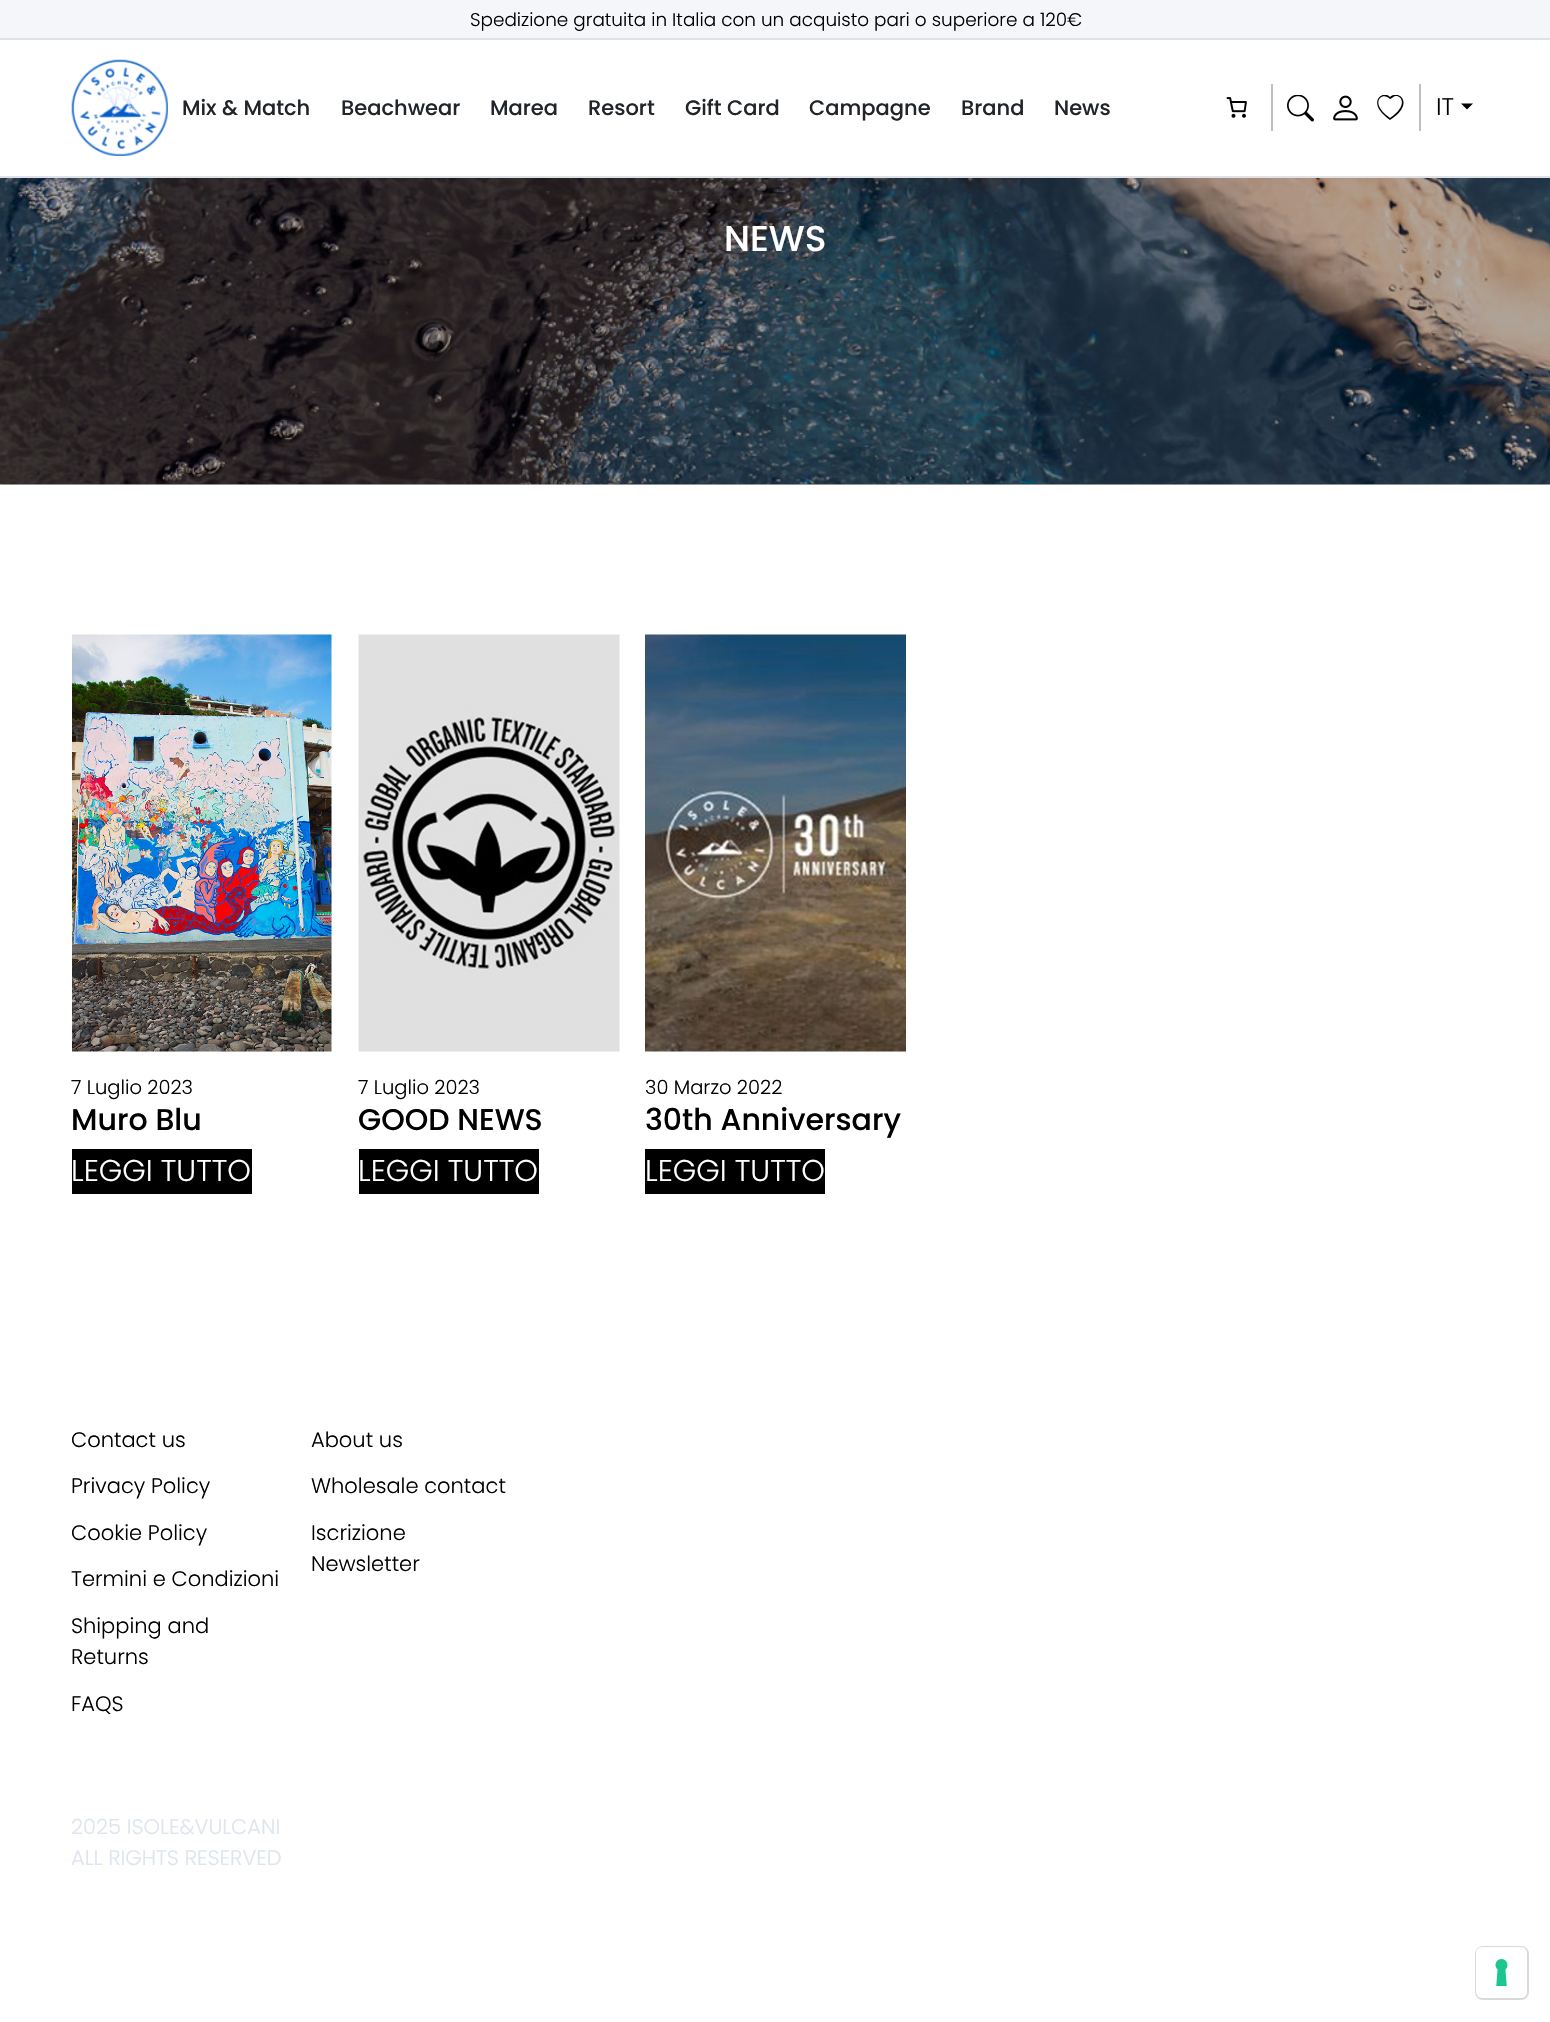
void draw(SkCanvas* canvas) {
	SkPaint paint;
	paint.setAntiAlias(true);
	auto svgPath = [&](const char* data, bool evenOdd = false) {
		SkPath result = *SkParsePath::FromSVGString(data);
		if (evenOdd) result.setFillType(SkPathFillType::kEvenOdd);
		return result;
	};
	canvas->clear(0xffffffff);
	paint.setColor(0xffb3b3b3);
	canvas->drawRect(SkRect::MakeXYWH(0, 484, 1550, 1), paint);
	paint.setColor(0xffdee2e6);
	canvas->drawRect(SkRect::MakeXYWH(0, 176, 1550, 2), paint);
	paint.setColor(0xfff4f6fa);
	canvas->drawRect(SkRect::MakeXYWH(0, 0, 1550, 38), paint);
	paint.setColor(0xffdee2e6);
	canvas->drawRect(SkRect::MakeXYWH(0, 38, 1550, 2), paint);
	SkFont f1(fontMgr->matchFamilyStyle("Poppins", SkFontStyle(300, SkFontStyle::kNormal_Width, SkFontStyle::kUpright_Slant)), 18.4);
	f1.setSubpixel(true);
	paint.setColor(0xff000000);
	canvas->drawString("Spedizione gratuita in Italia con un acquisto pari o superiore a 120€", 470, 26, f1, paint);
	canvas->drawImageRect(SkImages::DeferredFromEncodedData(SkData::MakeFromFileName("img1.png")), SkRect::MakeXYWH(71, 59, 97, 97), SkSamplingOptions());
	SkFont f2(fontMgr->matchFamilyStyle("Poppins", SkFontStyle(500, SkFontStyle::kNormal_Width, SkFontStyle::kUpright_Slant)), 21);
	f2.setSubpixel(true);
	paint.setColor(0xff212529);
	canvas->drawString("Mix & Match", 182, 115, f2, paint);
	canvas->drawString("Beachwear", 341, 115, f2, paint);
	canvas->drawString("Marea", 490, 115, f2, paint);
	canvas->drawString("Resort", 588, 115, f2, paint);
	canvas->drawString("Gift Card", 685, 115, f2, paint);
	canvas->drawString("Campagne", 809, 115, f2, paint);
	canvas->drawString("Brand", 961, 115, f2, paint);
	canvas->drawString("News", 1054, 115, f2, paint);
	canvas->drawImageRect(SkImages::DeferredFromEncodedData(SkData::MakeFromFileName("img2.png")), SkRect::MakeXYWH(1226, 97, 21, 21), SkSamplingOptions());
	paint.setColor(0xffbfbfbf);
	canvas->drawRect(SkRect::MakeXYWH(1271, 84, 2, 47), paint);
	canvas->drawImageRect(SkImages::DeferredFromEncodedData(SkData::MakeFromFileName("img3.png")), SkRect::MakeXYWH(1287, 95, 27, 27), SkSamplingOptions());
	canvas->drawImageRect(SkImages::DeferredFromEncodedData(SkData::MakeFromFileName("img4.png")), SkRect::MakeXYWH(1333, 95, 25, 26), SkSamplingOptions());
	canvas->save();
	canvas->clipRect(SkRect::MakeXYWH(1377, 95, 27, 27));
	paint.setColor(0xff000000);
	canvas->drawPath(svgPath("M1390 99C1384 93 1376 98 1379 106C1381 111 1386 115 1390 118C1412 103 1398 91 1392 98ZM1390 120C1365 103 1383 89 1390 97C1398 89 1416 103 1390 120"), paint);
	canvas->restore();
	paint.setColor(0xffbfbfbf);
	canvas->drawRect(SkRect::MakeXYWH(1419, 84, 2, 47), paint);
	SkFont f3(fontMgr->matchFamilyStyle("Poppins", SkFontStyle(300, SkFontStyle::kNormal_Width, SkFontStyle::kUpright_Slant)), 24);
	f3.setSubpixel(true);
	paint.setColor(0xff000000);
	canvas->drawString("IT", 1436, 115, f3, paint);
	canvas->drawPath(svgPath("M1461 103.5H1473L1467 109.5Z"), paint);
	canvas->drawImageRect(SkImages::DeferredFromEncodedData(SkData::MakeFromFileName("img5.png")), SkRect::MakeXYWH(0, 178, 1550, 307), SkSamplingOptions());
	SkFont f4(fontMgr->matchFamilyStyle("Poppins", SkFontStyle(500, SkFontStyle::kNormal_Width, SkFontStyle::kUpright_Slant)), 36);
	f4.setSubpixel(true);
	paint.setColor(0xffffffff);
	canvas->drawString("NEWS", 724, 251, f4, paint);
	canvas->drawImageRect(SkImages::DeferredFromEncodedData(SkData::MakeFromFileName("img6.png")), SkRect::MakeXYWH(72, 634, 260, 418), SkSamplingOptions());
	SkFont f5(fontMgr->matchFamilyStyle("Poppins", SkFontStyle(300, SkFontStyle::kNormal_Width, SkFontStyle::kUpright_Slant)), 19.5);
	f5.setSubpixel(true);
	paint.setColor(0xff000000);
	canvas->drawString("7 Luglio 2023", 71, 1094, f5, paint);
	SkFont f6(fontMgr->matchFamilyStyle("Poppins", SkFontStyle(500, SkFontStyle::kNormal_Width, SkFontStyle::kUpright_Slant)), 30);
	f6.setSubpixel(true);
	canvas->drawString("Muro Blu", 71, 1130, f6, paint);
	canvas->drawRect(SkRect::MakeXYWH(72, 1149, 180, 45), paint);
	SkFont f7(fontMgr->matchFamilyStyle("Poppins", SkFontStyle(300, SkFontStyle::kNormal_Width, SkFontStyle::kUpright_Slant)), 30);
	f7.setSubpixel(true);
	paint.setColor(0xffffffff);
	canvas->drawString("LEGGI TUTTO", 71, 1181, f7, paint);
	canvas->drawImageRect(SkImages::DeferredFromEncodedData(SkData::MakeFromFileName("img7.png")), SkRect::MakeXYWH(358, 634, 262, 418), SkSamplingOptions());
	paint.setColor(0xff000000);
	canvas->drawString("7 Luglio 2023", 358, 1094, f5, paint);
	canvas->drawString("GOOD NEWS", 358, 1130, f6, paint);
	canvas->drawRect(SkRect::MakeXYWH(359, 1149, 180, 45), paint);
	paint.setColor(0xffffffff);
	canvas->drawString("LEGGI TUTTO", 358, 1181, f7, paint);
	canvas->drawImageRect(SkImages::DeferredFromEncodedData(SkData::MakeFromFileName("img8.png")), SkRect::MakeXYWH(645, 634, 261, 418), SkSamplingOptions());
	paint.setColor(0xff000000);
	canvas->drawString("30 Marzo 2022", 645, 1094, f5, paint);
	canvas->drawString("30th Anniversary", 645, 1130, f6, paint);
	canvas->drawRect(SkRect::MakeXYWH(645, 1149, 180, 45), paint);
	paint.setColor(0xffffffff);
	canvas->drawString("LEGGI TUTTO", 645, 1181, f7, paint);
	SkFont f8(fontMgr->matchFamilyStyle("Poppins", SkFontStyle(300, SkFontStyle::kNormal_Width, SkFontStyle::kUpright_Slant)), 21);
	f8.setSubpixel(true);
	paint.setColor(0xff000000);
	canvas->drawString("Contact us", 71, 1447, f8, paint);
	canvas->drawString("Privacy Policy", 71, 1493, f8, paint);
	canvas->drawString("Cookie Policy", 71, 1540, f8, paint);
	canvas->drawString("Termini e Condizioni", 71, 1586, f8, paint);
	canvas->drawString("Shipping and", 71, 1633, f8, paint);
	canvas->drawString("Returns", 71, 1664, f8, paint);
	canvas->drawString("FAQS", 71, 1711, f8, paint);
	canvas->drawString("About us", 311, 1447, f8, paint);
	canvas->drawString("Wholesale contact", 311, 1493, f8, paint);
	canvas->drawString("Iscrizione", 311, 1540, f8, paint);
	canvas->drawString("Newsletter", 311, 1571, f8, paint);
	paint.setColor(0xffdee5ef);
	canvas->drawString("2025 ISOLE&VULCANI", 71, 1834, f8, paint);
	canvas->drawString("ALL RIGHTS RESERVED", 71, 1865, f8, paint);
	paint.setStroke(true);
	paint.setStrokeWidth(2);
	paint.setColor(0xffd9d9d9);
	canvas->drawRoundRect(SkRect::MakeXYWH(1476, 1947, 52, 52), 7, 7, paint);
	paint.setStroke(false);
	paint.setColor(0xffffffff);
	canvas->drawRoundRect(SkRect::MakeXYWH(1476, 1947, 51, 51), 6, 6, paint);
	canvas->drawImageRect(SkImages::DeferredFromEncodedData(SkData::MakeFromFileName("img9.png")), SkRect::MakeXYWH(1495, 1959, 13, 27), SkSamplingOptions());
}
